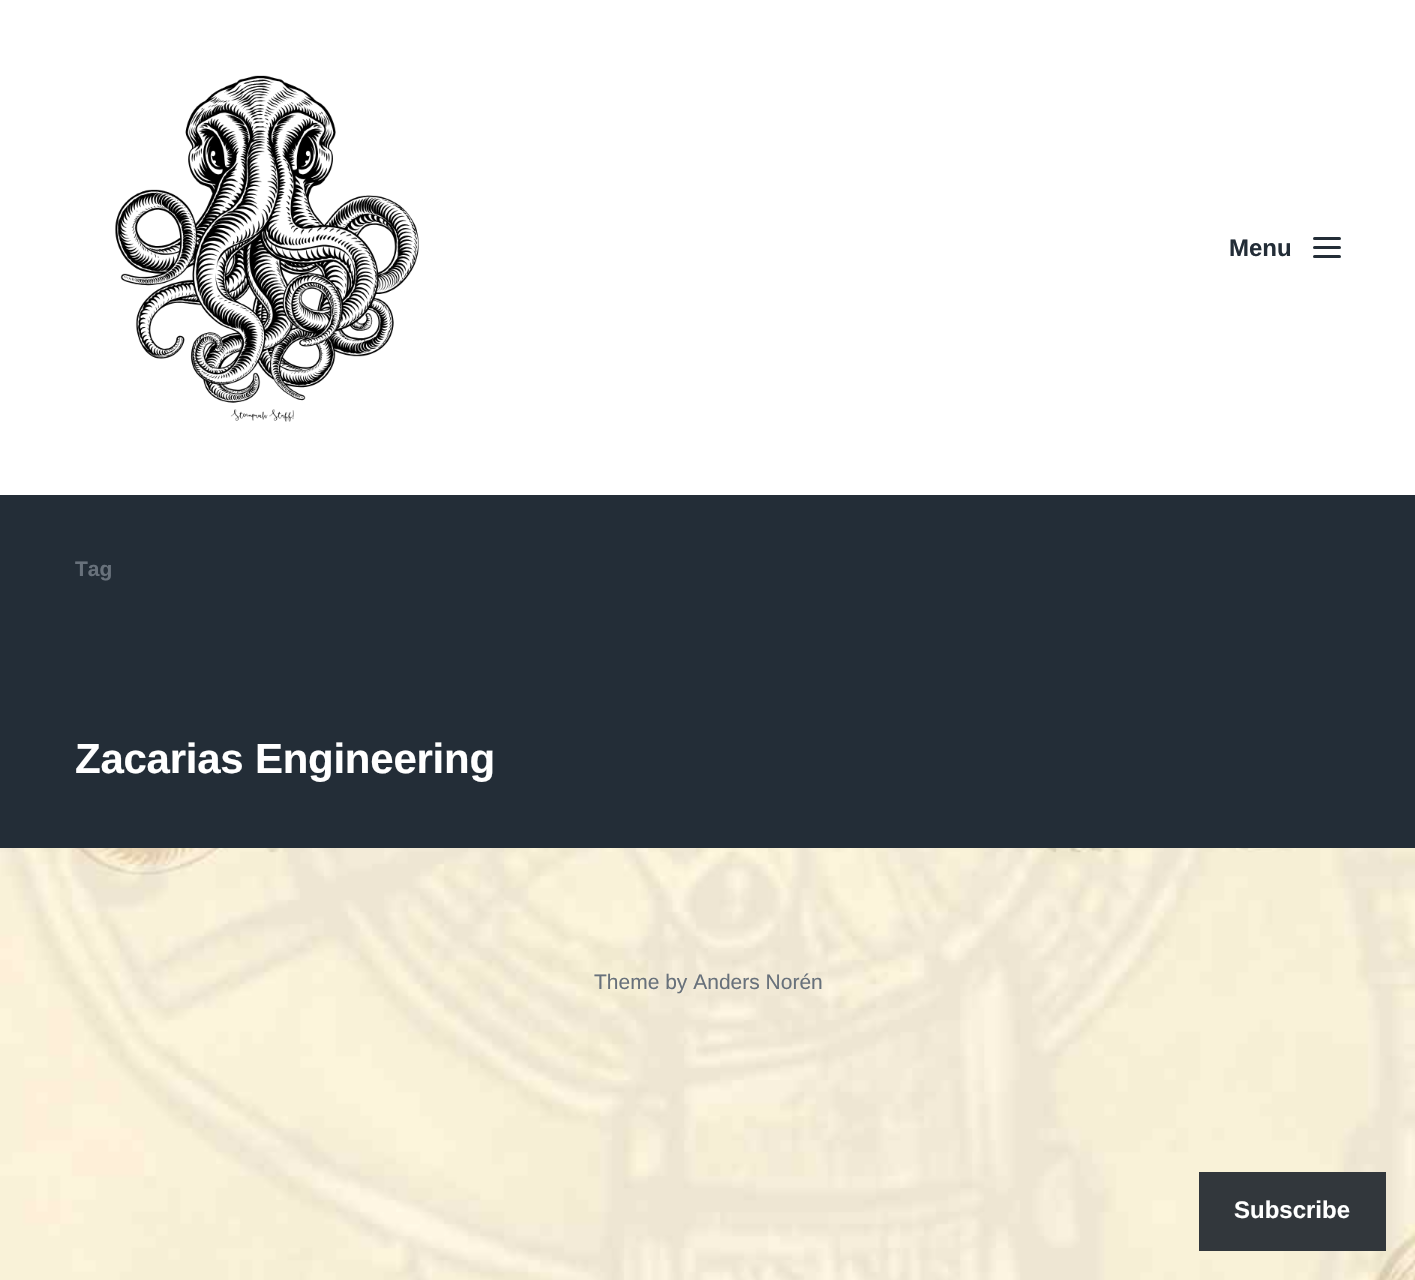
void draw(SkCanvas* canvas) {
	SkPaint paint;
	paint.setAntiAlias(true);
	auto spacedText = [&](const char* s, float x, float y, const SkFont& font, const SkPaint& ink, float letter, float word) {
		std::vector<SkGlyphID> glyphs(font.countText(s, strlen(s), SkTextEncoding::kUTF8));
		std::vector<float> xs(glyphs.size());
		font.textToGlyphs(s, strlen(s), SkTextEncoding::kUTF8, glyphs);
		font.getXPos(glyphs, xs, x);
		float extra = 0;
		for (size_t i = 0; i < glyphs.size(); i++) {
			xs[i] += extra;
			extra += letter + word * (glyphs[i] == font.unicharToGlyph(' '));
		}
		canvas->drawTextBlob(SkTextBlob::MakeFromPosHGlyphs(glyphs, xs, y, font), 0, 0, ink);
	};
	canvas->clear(0xffffffff);
	canvas->drawImageRect(SkImages::DeferredFromEncodedData(SkData::MakeFromFileName("img1.png")), SkRect::MakeXYWH(0, 848, 1415, 432), SkSamplingOptions());
	canvas->drawImageRect(SkImages::DeferredFromEncodedData(SkData::MakeFromFileName("img2.png")), SkRect::MakeXYWH(115, 75, 304, 347), SkSamplingOptions());
	SkFont f1(fontMgr->matchFamilyStyle("Liberation Sans", SkFontStyle::Bold()), 24);
	f1.setSubpixel(true);
	paint.setColor(0xff232d37);
	canvas->drawString("Menu", 1229, 256, f1, paint);
	canvas->drawRoundRect(SkRect::MakeXYWH(1313, 237, 28, 3), 1.5, 1.5, paint);
	canvas->drawRoundRect(SkRect::MakeXYWH(1313, 246, 28, 3), 1.5, 1.5, paint);
	canvas->drawRoundRect(SkRect::MakeXYWH(1313, 255, 28, 3), 1.5, 1.5, paint);
	canvas->drawRect(SkRect::MakeXYWH(0, 495, 1415, 353), paint);
	SkFont f2(fontMgr->matchFamilyStyle("Liberation Sans", SkFontStyle::Bold()), 21);
	f2.setSubpixel(true);
	paint.setColor(0xff68717b);
	canvas->drawString("Tag", 75, 576, f2, paint);
	SkFont f3(fontMgr->matchFamilyStyle("Liberation Sans", SkFontStyle::Bold()), 42);
	f3.setSubpixel(true);
	paint.setColor(0xffffffff);
	spacedText("Zacarias Engineering", 75, 773, f3, paint, -0.25, 0);
	SkFont f4(fontMgr->matchFamilyStyle("Liberation Sans", SkFontStyle::Normal()), 21);
	f4.setSubpixel(true);
	paint.setColor(0xff68717b);
	canvas->drawString("Theme by Anders Norén", 594, 989, f4, paint);
	paint.setColor(0xff32373c);
	canvas->drawRect(SkRect::MakeXYWH(1199, 1172, 187, 79), paint);
	paint.setColor(0xffffffff);
	canvas->drawString("Subscribe", 1234, 1218, f1, paint);
}
